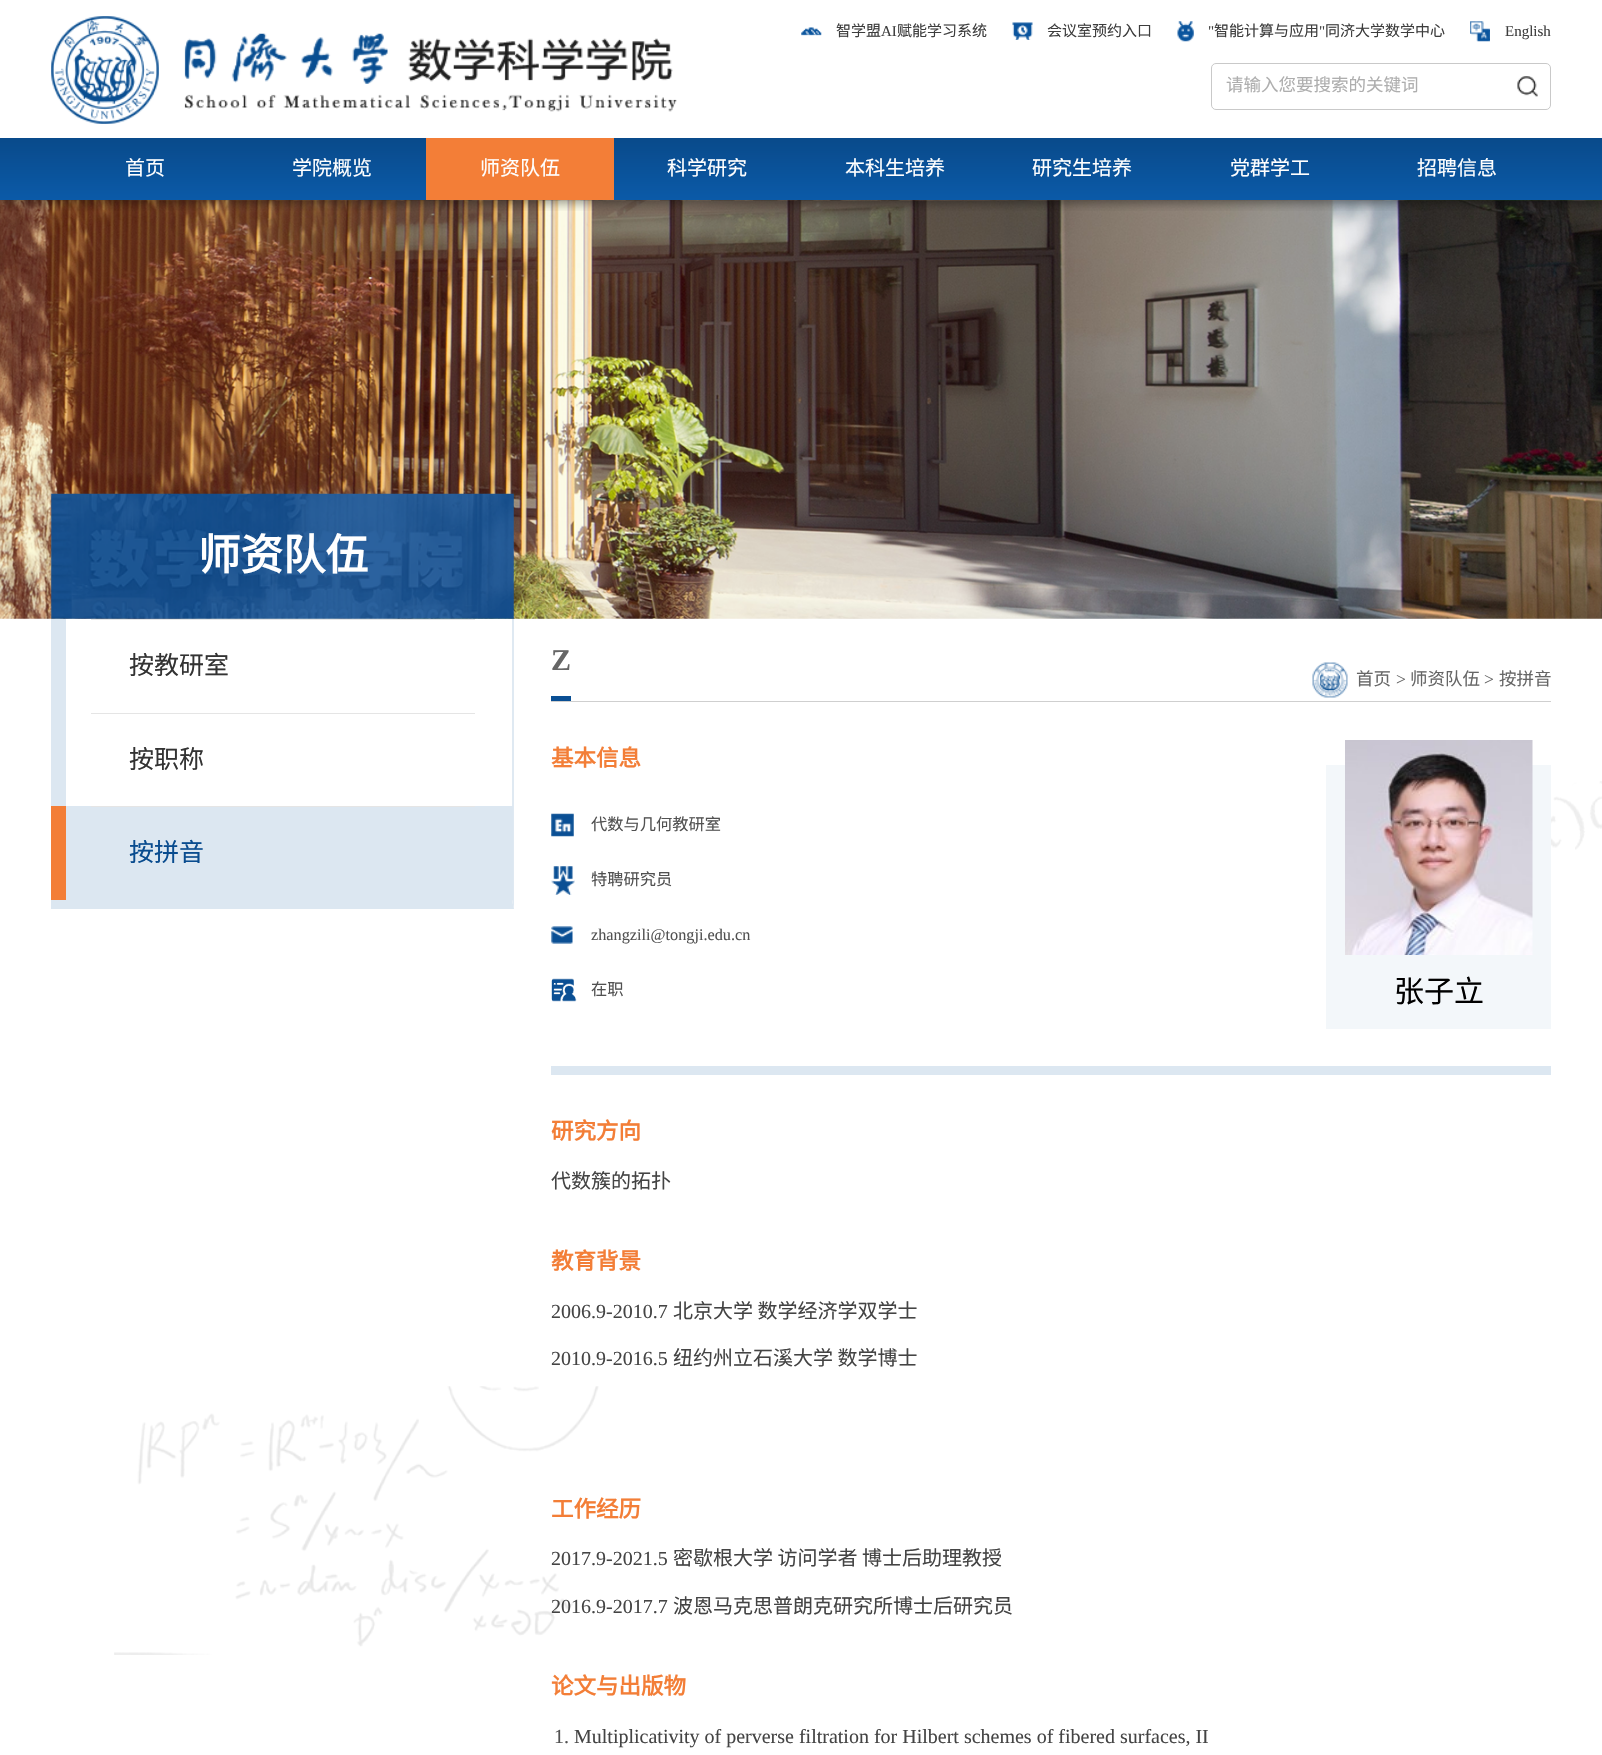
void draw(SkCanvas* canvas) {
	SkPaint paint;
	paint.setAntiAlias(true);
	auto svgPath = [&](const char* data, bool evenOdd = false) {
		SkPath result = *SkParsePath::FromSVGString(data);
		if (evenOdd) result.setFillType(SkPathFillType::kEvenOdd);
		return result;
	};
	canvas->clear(0xffffffff);
	canvas->drawImageRect(SkImages::DeferredFromEncodedData(SkData::MakeFromFileName("img7.png")), SkRect::MakeXYWH(0, 200, 1602, 419), SkSamplingOptions());
	canvas->save();
	canvas->clipRect(SkRect::MakeXYWH(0, 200, 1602, 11));
	paint.setColor(0x59000000);
	paint.setMaskFilter(SkMaskFilter::MakeBlur(kNormal_SkBlurStyle, 4.5));
	canvas->drawRect(SkRect::MakeXYWH(0, 4, 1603, 200), paint);
	paint.setMaskFilter(nullptr);
	canvas->restore();
	canvas->drawImageRect(SkImages::DeferredFromEncodedData(SkData::MakeFromFileName("img1.png")), SkRect::MakeXYWH(51, 16, 626, 108), SkSamplingOptions());
	canvas->drawImageRect(SkImages::DeferredFromEncodedData(SkData::MakeFromFileName("img2.png")), SkRect::MakeXYWH(801, 27, 21, 9), SkSamplingOptions());
	SkFont f1(fontMgr->matchFamilyStyle("Noto Sans CJK SC", SkFontStyle::Normal()), 15);
	f1.setSubpixel(true);
	paint.setColor(0xff3d3d3d);
	canvas->drawString("智学盟", 836, 36, f1, paint);
	SkFont f2(fontMgr->matchFamilyStyle("Liberation Serif", SkFontStyle::Normal()), 15);
	f2.setSubpixel(true);
	canvas->drawString("AI", 881, 36, f2, paint);
	canvas->drawString("赋能学习系统", 897, 36, f1, paint);
	canvas->drawImageRect(SkImages::DeferredFromEncodedData(SkData::MakeFromFileName("img3.png")), SkRect::MakeXYWH(1012, 22, 21, 18), SkSamplingOptions());
	canvas->drawString("会议室预约入口", 1047, 36, f1, paint);
	canvas->drawImageRect(SkImages::DeferredFromEncodedData(SkData::MakeFromFileName("img4.png")), SkRect::MakeXYWH(1177, 21, 17, 21), SkSamplingOptions());
	canvas->drawString("\"", 1208, 36, f2, paint);
	canvas->drawString("智能计算与应用", 1214, 36, f1, paint);
	canvas->drawString("\"", 1319, 36, f2, paint);
	canvas->drawString("同济大学数学中心", 1325, 36, f1, paint);
	canvas->drawImageRect(SkImages::DeferredFromEncodedData(SkData::MakeFromFileName("img5.png")), SkRect::MakeXYWH(1470, 21, 20, 21), SkSamplingOptions());
	canvas->drawString("English", 1505, 36, f2, paint);
	paint.setStroke(true);
	paint.setStrokeWidth(1);
	paint.setColor(0xffc9c9c9);
	canvas->drawRoundRect(SkRect::MakeXYWH(1211.5, 63.5, 339, 46), 4.5, 4.5, paint);
	SkFont f3(fontMgr->matchFamilyStyle("Noto Sans CJK SC", SkFontStyle::Normal()), 17.5);
	f3.setSubpixel(true);
	paint.setStroke(false);
	paint.setColor(0xffaeaeae);
	canvas->drawString("请输入您要搜索的关键词", 1226, 91, f3, paint);
	canvas->drawImageRect(SkImages::DeferredFromEncodedData(SkData::MakeFromFileName("img6.png")), SkRect::MakeXYWH(1517, 76, 21, 21), SkSamplingOptions());
	{
		const SkColor colors[] = {0xff094a8a, 0xff0b5aa8};
		const float stops[] = {0, 1};
		const SkPoint ends[] = {{801, 137}, {801, 200}};
		paint.setShader(SkGradientShader::MakeLinear(ends, colors, stops, 2, SkTileMode::kClamp));
		paint.setAlpha(255);
	}
	canvas->drawRect(SkRect::MakeXYWH(0, 138, 1602, 62), paint);
	SkFont f4(fontMgr->matchFamilyStyle("Noto Sans CJK SC", SkFontStyle::Normal()), 20);
	f4.setSubpixel(true);
	paint.setShader(nullptr);
	paint.setColor(0xffffffff);
	canvas->drawString("首页", 125, 175, f4, paint);
	canvas->drawString("学院概览", 292, 175, f4, paint);
	paint.setColor(0xfff37e37);
	canvas->drawRect(SkRect::MakeXYWH(426, 138, 188, 62), paint);
	paint.setColor(0xffffffff);
	canvas->drawString("师资队伍", 480, 175, f4, paint);
	canvas->drawString("科学研究", 667, 175, f4, paint);
	canvas->drawString("本科生培养", 845, 175, f4, paint);
	canvas->drawString("研究生培养", 1032, 175, f4, paint);
	canvas->drawString("党群学工", 1230, 175, f4, paint);
	canvas->drawString("招聘信息", 1417, 175, f4, paint);
	canvas->drawImageRect(SkImages::DeferredFromEncodedData(SkData::MakeFromFileName("img8.png")), SkRect::MakeXYWH(51, 493, 463, 126), SkSamplingOptions());
	SkFont f5(fontMgr->matchFamilyStyle("Noto Sans CJK SC", SkFontStyle::Bold()), 42.5);
	f5.setSubpixel(true);
	canvas->drawString("师资队伍", 198, 570, f5, paint);
	canvas->drawImageRect(SkImages::DeferredFromEncodedData(SkData::MakeFromFileName("img9.png")), SkRect::MakeXYWH(114, 781, 1488, 874), SkSamplingOptions());
	paint.setColor(0xffdfe9f2);
	canvas->drawPath(svgPath("M514 619V909L512 900V619Z"), paint);
	paint.setColor(0xffdce7f1);
	canvas->drawPath(svgPath("M514 909H51V900H512Z"), paint);
	canvas->drawRect(SkRect::MakeXYWH(51, 619, 15, 187), paint);
	paint.setColor(0xffe5e5e5);
	canvas->drawRect(SkRect::MakeXYWH(91, 619, 384, 1), paint);
	SkFont f6(fontMgr->matchFamilyStyle("Noto Sans CJK SC", SkFontStyle::Normal()), 25);
	f6.setSubpixel(true);
	paint.setColor(0xff333333);
	canvas->drawString("按教研室", 129, 674, f6, paint);
	paint.setColor(0xffe5e5e5);
	canvas->drawRect(SkRect::MakeXYWH(91, 713, 384, 1), paint);
	paint.setColor(0xff333333);
	canvas->drawString("按职称", 129, 768, f6, paint);
	paint.setColor(0xffdce7f1);
	canvas->drawRect(SkRect::MakeXYWH(66, 806, 447, 94), paint);
	paint.setColor(0xfff37e37);
	canvas->drawRect(SkRect::MakeXYWH(51, 806, 15, 94), paint);
	paint.setColor(0xffe5e5e5);
	canvas->drawRect(SkRect::MakeXYWH(91, 806, 384, 1), paint);
	paint.setColor(0xff094c8f);
	canvas->drawString("按拼音", 129, 861, f6, paint);
	paint.setColor(0xffcfcfcf);
	canvas->drawRect(SkRect::MakeXYWH(551, 701, 1000, 1), paint);
	paint.setColor(0xff0a4f94);
	canvas->drawRect(SkRect::MakeXYWH(551, 696, 20, 5), paint);
	SkFont f7(fontMgr->matchFamilyStyle("Liberation Serif", SkFontStyle::Bold()), 30);
	f7.setSubpixel(true);
	paint.setColor(0xff666666);
	canvas->drawString("Z", 551, 670, f7, paint);
	canvas->drawImageRect(SkImages::DeferredFromEncodedData(SkData::MakeFromFileName("img10.png")), SkRect::MakeXYWH(1312, 662, 36, 36), SkSamplingOptions());
	canvas->drawString("首页", 1356, 685, f3, paint);
	SkFont f8(fontMgr->matchFamilyStyle("Liberation Serif", SkFontStyle::Normal()), 17.5);
	f8.setSubpixel(true);
	canvas->drawString(">", 1396, 685, f8, paint);
	canvas->drawString("师资队伍", 1410, 685, f3, paint);
	canvas->drawString(">", 1484, 685, f8, paint);
	canvas->drawString("按拼音", 1499, 685, f3, paint);
	paint.setColor(0xffdce7f1);
	canvas->drawRect(SkRect::MakeXYWH(551, 1066, 1000, 9), paint);
	SkFont f9(fontMgr->matchFamilyStyle("Noto Sans CJK SC", SkFontStyle::Bold()), 22.5);
	f9.setSubpixel(true);
	paint.setColor(0xfff37e37);
	canvas->drawString("基本信息", 551, 766, f9, paint);
	canvas->drawImageRect(SkImages::DeferredFromEncodedData(SkData::MakeFromFileName("img11.png")), SkRect::MakeXYWH(551, 813, 23, 24), SkSamplingOptions());
	SkFont f10(fontMgr->matchFamilyStyle("Noto Sans CJK SC", SkFontStyle::Normal()), 16.25);
	f10.setSubpixel(true);
	paint.setColor(0xff515151);
	canvas->drawString("代数与几何教研室", 591, 830, f10, paint);
	canvas->drawImageRect(SkImages::DeferredFromEncodedData(SkData::MakeFromFileName("img12.png")), SkRect::MakeXYWH(551, 866, 24, 29), SkSamplingOptions());
	canvas->drawString("特聘研究员", 591, 885, f10, paint);
	canvas->drawImageRect(SkImages::DeferredFromEncodedData(SkData::MakeFromFileName("img13.png")), SkRect::MakeXYWH(551, 926, 22, 18), SkSamplingOptions());
	SkFont f11(fontMgr->matchFamilyStyle("Liberation Serif", SkFontStyle::Normal()), 16.25);
	f11.setSubpixel(true);
	canvas->drawString("zhangzili@tongji.edu.cn", 591, 940, f11, paint);
	canvas->drawImageRect(SkImages::DeferredFromEncodedData(SkData::MakeFromFileName("img14.png")), SkRect::MakeXYWH(551, 978, 26, 24), SkSamplingOptions());
	canvas->drawString("在职", 591, 995, f10, paint);
	paint.setColor(0xfff3f7fa);
	canvas->drawRect(SkRect::MakeXYWH(1326, 765, 225, 264), paint);
	canvas->drawImageRect(SkImages::DeferredFromEncodedData(SkData::MakeFromFileName("img15.png")), SkRect::MakeXYWH(1345, 740, 188, 215), SkSamplingOptions());
	SkFont f12(fontMgr->matchFamilyStyle("Noto Sans CJK SC", SkFontStyle::Normal()), 30);
	f12.setSubpixel(true);
	paint.setColor(0xff000000);
	canvas->drawString("张子立", 1394, 1002, f12, paint);
	paint.setColor(0xfff37e37);
	canvas->drawString("研究方向", 551, 1139, f9, paint);
	paint.setColor(0xff444444);
	canvas->drawString("代数簇的拓扑", 551, 1188, f4, paint);
	paint.setColor(0xfff37e37);
	canvas->drawString("教育背景", 551, 1269, f9, paint);
	SkFont f13(fontMgr->matchFamilyStyle("Liberation Serif", SkFontStyle::Normal()), 20);
	f13.setSubpixel(true);
	paint.setColor(0xff444444);
	canvas->drawString("2006.9-2010.7", 551, 1318, f13, paint);
	canvas->drawString("北京大学 数学经济学双学士", 673, 1318, f4, paint);
	canvas->drawString("2010.9-2016.5", 551, 1365, f13, paint);
	canvas->drawString("纽约州立石溪大学 数学博士", 673, 1365, f4, paint);
	paint.setColor(0xfff37e37);
	canvas->drawString("工作经历", 551, 1517, f9, paint);
	paint.setColor(0xff444444);
	canvas->drawString("2017.9-2021.5", 551, 1565, f13, paint);
	canvas->drawString("密歇根大学 访问学者 博士后助理教授", 673, 1565, f4, paint);
	canvas->drawString("2016.9-2017.7", 551, 1613, f13, paint);
	canvas->drawString("波恩马克思普朗克研究所博士后研究员", 673, 1613, f4, paint);
	paint.setColor(0xfff37e37);
	canvas->drawString("论文与出版物", 551, 1694, f9, paint);
	paint.setColor(0xff515151);
	canvas->drawString("1.", 554, 1743, f13, paint);
	paint.setColor(0xff444444);
	canvas->drawString("Multiplicativity of perverse filtration for Hilbert schemes of fibered surfaces, II", 574, 1743, f13, paint);
}
